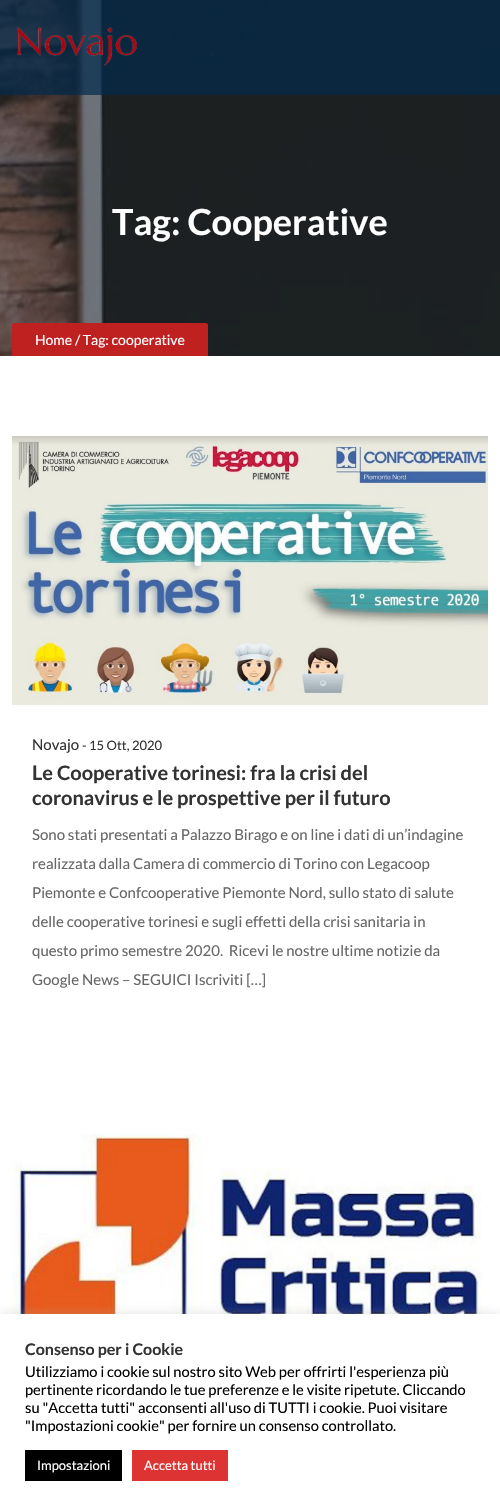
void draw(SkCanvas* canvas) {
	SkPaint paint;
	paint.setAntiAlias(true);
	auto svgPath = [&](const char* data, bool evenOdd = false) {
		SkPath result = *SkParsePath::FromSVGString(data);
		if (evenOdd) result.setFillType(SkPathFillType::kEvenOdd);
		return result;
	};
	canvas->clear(0xffffffff);
	canvas->drawImageRect(SkImages::DeferredFromEncodedData(SkData::MakeFromFileName("img2.png")), SkRect::MakeXYWH(0, 0, 500, 356), SkSamplingOptions());
	paint.setColor(0xb301294c);
	canvas->drawRect(SkRect::MakeXYWH(0, 0, 500, 95), paint);
	canvas->drawImageRect(SkImages::DeferredFromEncodedData(SkData::MakeFromFileName("img1.png")), SkRect::MakeXYWH(17, 27, 120, 39), SkSamplingOptions());
	SkFont f1(fontMgr->matchFamilyStyle("Lato", SkFontStyle::Bold()), 36);
	f1.setSubpixel(true);
	paint.setColor(0xffffffff);
	canvas->drawString("Tag: Cooperative", 112, 235, f1, paint);
	paint.setColor(0xffbf2121);
	canvas->drawPath(svgPath("M14 323H206C207 323 208 324 208 325V356H12V325C12 324 13 323 14 323Z"), paint);
	SkFont f2(fontMgr->matchFamilyStyle("Lato", SkFontStyle::Normal()), 14);
	f2.setSubpixel(true);
	paint.setColor(0xffffffff);
	canvas->drawString("Home / Tag: cooperative", 35, 345, f2, paint);
	canvas->drawImageRect(SkImages::DeferredFromEncodedData(SkData::MakeFromFileName("img3.png")), SkRect::MakeXYWH(12, 436, 476, 269), SkSamplingOptions());
	SkFont f3(fontMgr->matchFamilyStyle("Lato", SkFontStyle::Normal()), 15);
	f3.setSubpixel(true);
	paint.setColor(0xff333333);
	canvas->drawString("Novajo", 32, 750, f3, paint);
	SkFont f4(fontMgr->matchFamilyStyle("Lato", SkFontStyle::Normal()), 13);
	f4.setSubpixel(true);
	canvas->drawString("- 15 Ott, 2020", 82, 750, f4, paint);
	SkFont f5(fontMgr->matchFamilyStyle("Lato", SkFontStyle::Bold()), 20);
	f5.setSubpixel(true);
	canvas->drawString("Le Cooperative torinesi: fra la crisi del", 32, 780, f5, paint);
	canvas->drawString("coronavirus e le prospettive per il futuro", 32, 805, f5, paint);
	paint.setColor(0xff666666);
	canvas->drawString("Sono stati presentati a Palazzo Birago e on line i dati di un’indagine", 32, 840, f3, paint);
	canvas->drawString("realizzata dalla Camera di commercio di Torino con Legacoop", 32, 869, f3, paint);
	canvas->drawString("Piemonte e Confcooperative Piemonte Nord, sullo stato di salute", 32, 898, f3, paint);
	canvas->drawString("delle cooperative torinesi e sugli effetti della crisi sanitaria in", 32, 927, f3, paint);
	canvas->drawString("questo primo semestre 2020.  Ricevi le nostre ultime notizie da", 32, 956, f3, paint);
	canvas->drawString("Google News – SEGUICI Iscriviti […]", 32, 985, f3, paint);
	canvas->drawImageRect(SkImages::DeferredFromEncodedData(SkData::MakeFromFileName("img4.png")), SkRect::MakeXYWH(12, 1134, 471, 180), SkSamplingOptions());
	paint.setColor(0x4dacabab);
	paint.setMaskFilter(SkMaskFilter::MakeBlur(kNormal_SkBlurStyle, 5));
	canvas->drawRect(SkRect::MakeXYWH(0, 1313, 500, 197), paint);
	paint.setMaskFilter(nullptr);
	paint.setColor(0xffffffff);
	canvas->drawRect(SkRect::MakeXYWH(0, 1314, 500, 197), paint);
	SkFont f6(fontMgr->matchFamilyStyle("Lato", SkFontStyle::Bold()), 16);
	f6.setSubpixel(true);
	paint.setColor(0xff333333);
	canvas->drawString("Consenso per i Cookie", 25, 1355, f6, paint);
	SkFont f7(fontMgr->matchFamilyStyle("Lato", SkFontStyle::Normal()), 14.7);
	f7.setSubpixel(true);
	paint.setColor(0xff000000);
	canvas->drawString("Utilizziamo i cookie sul nostro sito Web per offrirti l'esperienza più", 25, 1377, f7, paint);
	canvas->drawString("pertinente ricordando le tue preferenze e le visite ripetute. Cliccando", 25, 1395, f7, paint);
	canvas->drawString("su \"Accetta tutti\" acconsenti all'uso di TUTTI i cookie. Puoi visitare", 25, 1413, f7, paint);
	canvas->drawString("\"Impostazioni cookie\" per fornire un consenso controllato.", 25, 1431, f7, paint);
	canvas->drawRect(SkRect::MakeXYWH(25, 1450, 97, 31), paint);
	paint.setColor(0xffffffff);
	canvas->drawString("Impostazioni", 37, 1470, f4, paint);
	paint.setColor(0xffdd3333);
	canvas->drawRect(SkRect::MakeXYWH(132, 1450, 96, 31), paint);
	paint.setColor(0xffffffff);
	canvas->drawString("Accetta tutti", 144, 1470, f4, paint);
}
